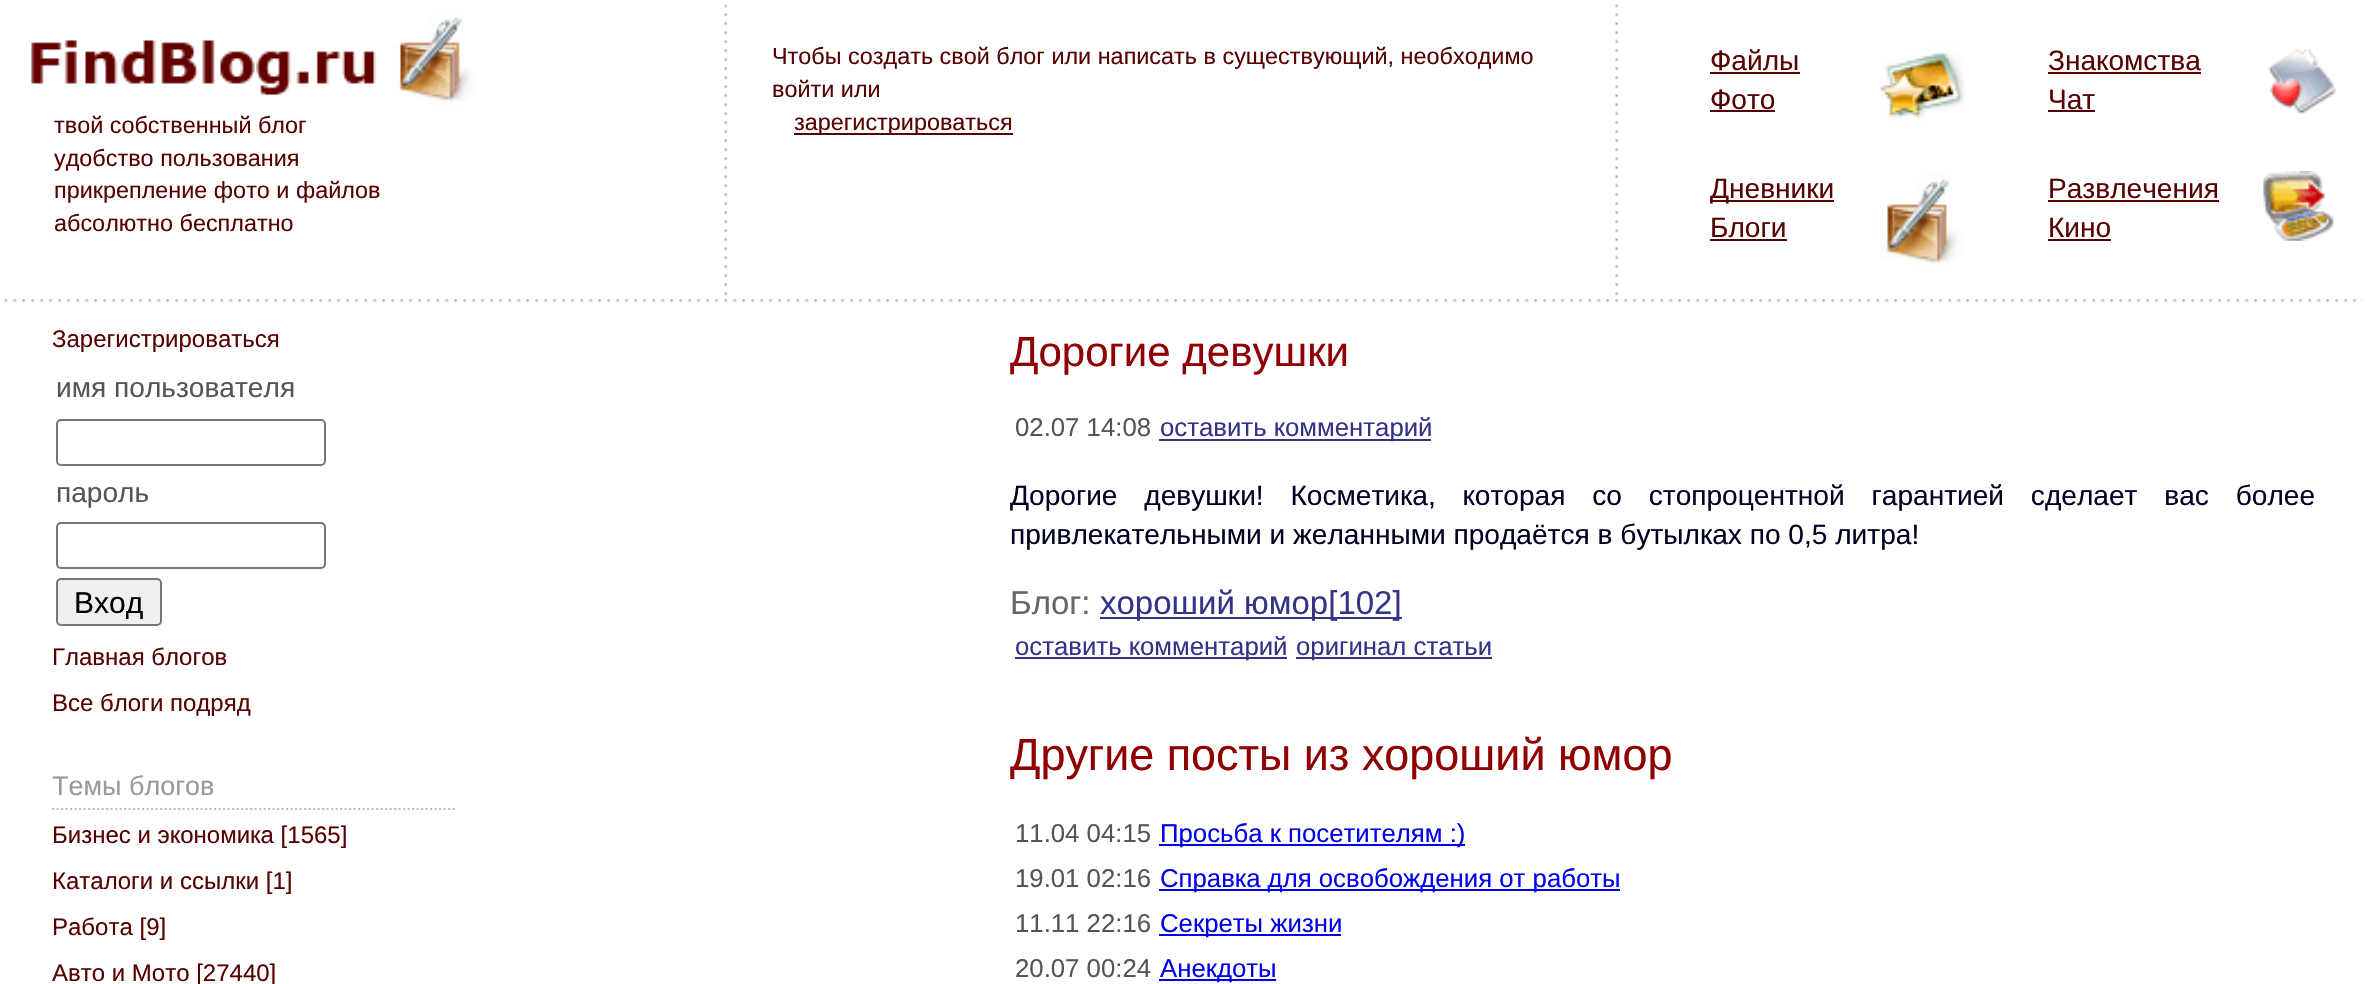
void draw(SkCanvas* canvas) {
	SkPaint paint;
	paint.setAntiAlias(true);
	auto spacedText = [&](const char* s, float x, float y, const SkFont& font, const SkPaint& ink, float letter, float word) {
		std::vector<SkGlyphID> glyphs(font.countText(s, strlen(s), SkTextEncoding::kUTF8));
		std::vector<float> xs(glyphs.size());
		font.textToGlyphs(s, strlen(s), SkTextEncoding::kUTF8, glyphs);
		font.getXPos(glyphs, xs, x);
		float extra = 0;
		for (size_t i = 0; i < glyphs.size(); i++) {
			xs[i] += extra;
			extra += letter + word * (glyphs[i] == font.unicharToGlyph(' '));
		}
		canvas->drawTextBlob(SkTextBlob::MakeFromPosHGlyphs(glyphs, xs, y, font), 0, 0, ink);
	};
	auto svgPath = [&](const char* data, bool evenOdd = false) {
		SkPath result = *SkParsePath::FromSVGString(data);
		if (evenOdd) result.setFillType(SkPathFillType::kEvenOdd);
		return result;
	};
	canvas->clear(0xffffffff);
	canvas->drawImageRect(SkImages::DeferredFromEncodedData(SkData::MakeFromFileName("img1.png")), SkRect::MakeXYWH(31, 9, 446, 101), SkSamplingOptions());
	SkFont f1(fontMgr->matchFamilyStyle("Liberation Sans", SkFontStyle::Normal()), 23.4);
	f1.setSubpixel(true);
	paint.setColor(0xff560202);
	canvas->drawString("твой собственный блог", 54, 133, f1, paint);
	canvas->drawString("удобство пользования", 54, 166, f1, paint);
	canvas->drawString("прикрепление фото и файлов", 54, 198, f1, paint);
	canvas->drawString("абсолютно бесплатно", 54, 231, f1, paint);
	canvas->drawImageRect(SkImages::DeferredFromEncodedData(SkData::MakeFromFileName("img2.png")), SkRect::MakeXYWH(724, 4, 4, 292), SkSamplingOptions());
	canvas->drawString("Чтобы создать свой блог или написать в существующий, необходимо", 772, 64, f1, paint);
	canvas->drawString("войти или", 772, 97, f1, paint);
	canvas->drawRect(SkRect::MakeXYWH(794, 133, 219, 2), paint);
	canvas->drawString("зарегистрироваться", 794, 130, f1, paint);
	canvas->drawImageRect(SkImages::DeferredFromEncodedData(SkData::MakeFromFileName("img2.png")), SkRect::MakeXYWH(1615, 4, 4, 292), SkSamplingOptions());
	SkFont f2(fontMgr->matchFamilyStyle("Liberation Sans", SkFontStyle::Normal()), 28.1);
	f2.setSubpixel(true);
	canvas->drawString("Файлы", 1710, 70, f2, paint);
	canvas->drawRect(SkRect::MakeXYWH(1710, 72, 90, 2), paint);
	canvas->drawString("Фото", 1710, 109, f2, paint);
	canvas->drawRect(SkRect::MakeXYWH(1710, 110, 65, 2), paint);
	canvas->drawImageRect(SkImages::DeferredFromEncodedData(SkData::MakeFromFileName("img3.png")), SkRect::MakeXYWH(1879, 43, 86, 83), SkSamplingOptions());
	canvas->drawString("Знакомства", 2048, 70, f2, paint);
	canvas->drawRect(SkRect::MakeXYWH(2048, 72, 153, 2), paint);
	canvas->drawString("Чат", 2048, 109, f2, paint);
	canvas->drawRect(SkRect::MakeXYWH(2048, 110, 47, 2), paint);
	canvas->drawImageRect(SkImages::DeferredFromEncodedData(SkData::MakeFromFileName("img4.png")), SkRect::MakeXYWH(2267, 49, 69, 66), SkSamplingOptions());
	canvas->drawRect(SkRect::MakeXYWH(1710, 200, 124, 2), paint);
	canvas->drawString("Дневники", 1710, 198, f2, paint);
	canvas->drawString("Блоги", 1710, 237, f2, paint);
	canvas->drawRect(SkRect::MakeXYWH(1710, 239, 77, 2), paint);
	canvas->drawImageRect(SkImages::DeferredFromEncodedData(SkData::MakeFromFileName("img5.png")), SkRect::MakeXYWH(1879, 171, 85, 101), SkSamplingOptions());
	canvas->drawString("Развлечения", 2048, 198, f2, paint);
	canvas->drawRect(SkRect::MakeXYWH(2048, 200, 171, 2), paint);
	canvas->drawString("Кино", 2048, 237, f2, paint);
	canvas->drawRect(SkRect::MakeXYWH(2048, 239, 63, 2), paint);
	canvas->drawImageRect(SkImages::DeferredFromEncodedData(SkData::MakeFromFileName("img6.png")), SkRect::MakeXYWH(2263, 171, 71, 70), SkSamplingOptions());
	canvas->drawImageRect(SkImages::DeferredFromEncodedData(SkData::MakeFromFileName("img7.png")), SkRect::MakeXYWH(4, 299, 2359, 4), SkSamplingOptions());
	SkFont f3(fontMgr->matchFamilyStyle("Liberation Sans", SkFontStyle::Normal()), 24);
	f3.setSubpixel(true);
	canvas->drawString("Зарегистрироваться", 52, 347, f3, paint);
	paint.setColor(0xff555555);
	canvas->drawString("имя пользователя", 56, 397, f2, paint);
	paint.setStroke(true);
	paint.setStrokeWidth(2);
	paint.setColor(0xff767676);
	canvas->drawRoundRect(SkRect::MakeXYWH(57, 420, 268, 45), 4, 4, paint);
	paint.setStroke(false);
	paint.setColor(0xff555555);
	canvas->drawString("пароль", 56, 502, f2, paint);
	paint.setStroke(true);
	paint.setColor(0xff767676);
	canvas->drawRoundRect(SkRect::MakeXYWH(57, 523, 268, 45), 4, 4, paint);
	paint.setStroke(false);
	paint.setColor(0xffefefef);
	canvas->drawRoundRect(SkRect::MakeXYWH(57, 579, 104, 46), 4, 4, paint);
	paint.setStroke(true);
	paint.setColor(0xff767676);
	canvas->drawRoundRect(SkRect::MakeXYWH(57, 579, 104, 46), 4, 4, paint);
	SkFont f4(fontMgr->matchFamilyStyle("Liberation Sans", SkFontStyle::Normal()), 30);
	f4.setSubpixel(true);
	paint.setStroke(false);
	paint.setColor(0xff000000);
	canvas->drawString("Вход", 74, 613, f4, paint);
	paint.setColor(0xff560202);
	canvas->drawString("Главная блогов", 52, 665, f3, paint);
	canvas->drawString("Все блоги подряд", 52, 711, f3, paint);
	paint.setStroke(true);
	paint.setStrokeWidth(2.2);
	paint.setColor(0xffc0c0c0);
	paint.setPathEffect(SkDashPathEffect::Make({{2.25f, 2.25f}}, 0));
	canvas->drawPath(svgPath("M52 809H457"), paint);
	paint.setPathEffect(nullptr);
	SkFont f5(fontMgr->matchFamilyStyle("Liberation Sans", SkFontStyle::Normal()), 27);
	f5.setSubpixel(true);
	paint.setStroke(false);
	paint.setColor(0xff999999);
	canvas->drawString("Темы блогов", 52, 795, f5, paint);
	paint.setColor(0xff560202);
	canvas->drawString("Бизнес и экономика [1565]", 52, 843, f3, paint);
	canvas->drawString("Каталоги и ссылки [1]", 52, 889, f3, paint);
	canvas->drawString("Работа [9]", 52, 935, f3, paint);
	canvas->drawString("Авто и Мото [27440]", 52, 981, f3, paint);
	SkFont f6(fontMgr->matchFamilyStyle("Liberation Sans", SkFontStyle::Normal()), 42);
	f6.setSubpixel(true);
	paint.setColor(0xff900000);
	canvas->drawString("Дорогие девушки", 1010, 366, f6, paint);
	SkFont f7(fontMgr->matchFamilyStyle("Liberation Sans", SkFontStyle::Normal()), 25.75);
	f7.setSubpixel(true);
	paint.setColor(0xff555555);
	canvas->drawString("02.07 14:08", 1015, 436, f7, paint);
	paint.setColor(0xff333388);
	canvas->drawRect(SkRect::MakeXYWH(1159, 439, 272, 2), paint);
	canvas->drawString("оставить комментарий", 1160, 436, f7, paint);
	paint.setColor(0xff000022);
	spacedText("Дорогие девушки! Косметика, которая со стопроцентной гарантией сделает вас более", 1010, 505, f2, paint, 0, 19);
	canvas->drawString("привлекательными и желанными продаётся в бутылках по 0,5 литра!", 1010, 544, f2, paint);
	SkFont f8(fontMgr->matchFamilyStyle("Liberation Sans", SkFontStyle::Normal()), 33);
	f8.setSubpixel(true);
	paint.setColor(0xff666666);
	canvas->drawString("Блог:", 1010, 614, f8, paint);
	paint.setColor(0xff333388);
	canvas->drawRect(SkRect::MakeXYWH(1100, 617, 302, 2), paint);
	canvas->drawString("хороший юмор[102]", 1100, 614, f8, paint);
	canvas->drawRect(SkRect::MakeXYWH(1015, 657, 272, 2), paint);
	canvas->drawString("оставить комментарий", 1015, 655, f7, paint);
	canvas->drawRect(SkRect::MakeXYWH(1296, 657, 196, 2), paint);
	canvas->drawString("оригинал статьи", 1296, 655, f7, paint);
	SkFont f9(fontMgr->matchFamilyStyle("Liberation Sans", SkFontStyle::Normal()), 44.9);
	f9.setSubpixel(true);
	paint.setColor(0xff900000);
	canvas->drawString("Другие посты из хороший юмор", 1010, 770, f9, paint);
	paint.setColor(0xff555555);
	canvas->drawString("11.04 04:15", 1015, 842, f7, paint);
	paint.setColor(0xff0000ee);
	canvas->drawRect(SkRect::MakeXYWH(1159, 844, 306, 2), paint);
	canvas->drawString("Просьба к посетителям :)", 1160, 842, f7, paint);
	paint.setColor(0xff555555);
	canvas->drawString("19.01 02:16", 1015, 887, f7, paint);
	paint.setColor(0xff0000ee);
	canvas->drawRect(SkRect::MakeXYWH(1159, 889, 461, 2), paint);
	canvas->drawString("Справка для освобождения от работы", 1160, 887, f7, paint);
	paint.setColor(0xff555555);
	canvas->drawString("11.11 22:16", 1015, 932, f7, paint);
	paint.setColor(0xff0000ee);
	canvas->drawRect(SkRect::MakeXYWH(1159, 934, 182, 2), paint);
	canvas->drawString("Секреты жизни", 1160, 932, f7, paint);
	paint.setColor(0xff555555);
	canvas->drawString("20.07 00:24", 1015, 977, f7, paint);
	paint.setColor(0xff0000ee);
	canvas->drawRect(SkRect::MakeXYWH(1159, 979, 117, 2), paint);
	canvas->drawString("Анекдоты", 1160, 977, f7, paint);
}
